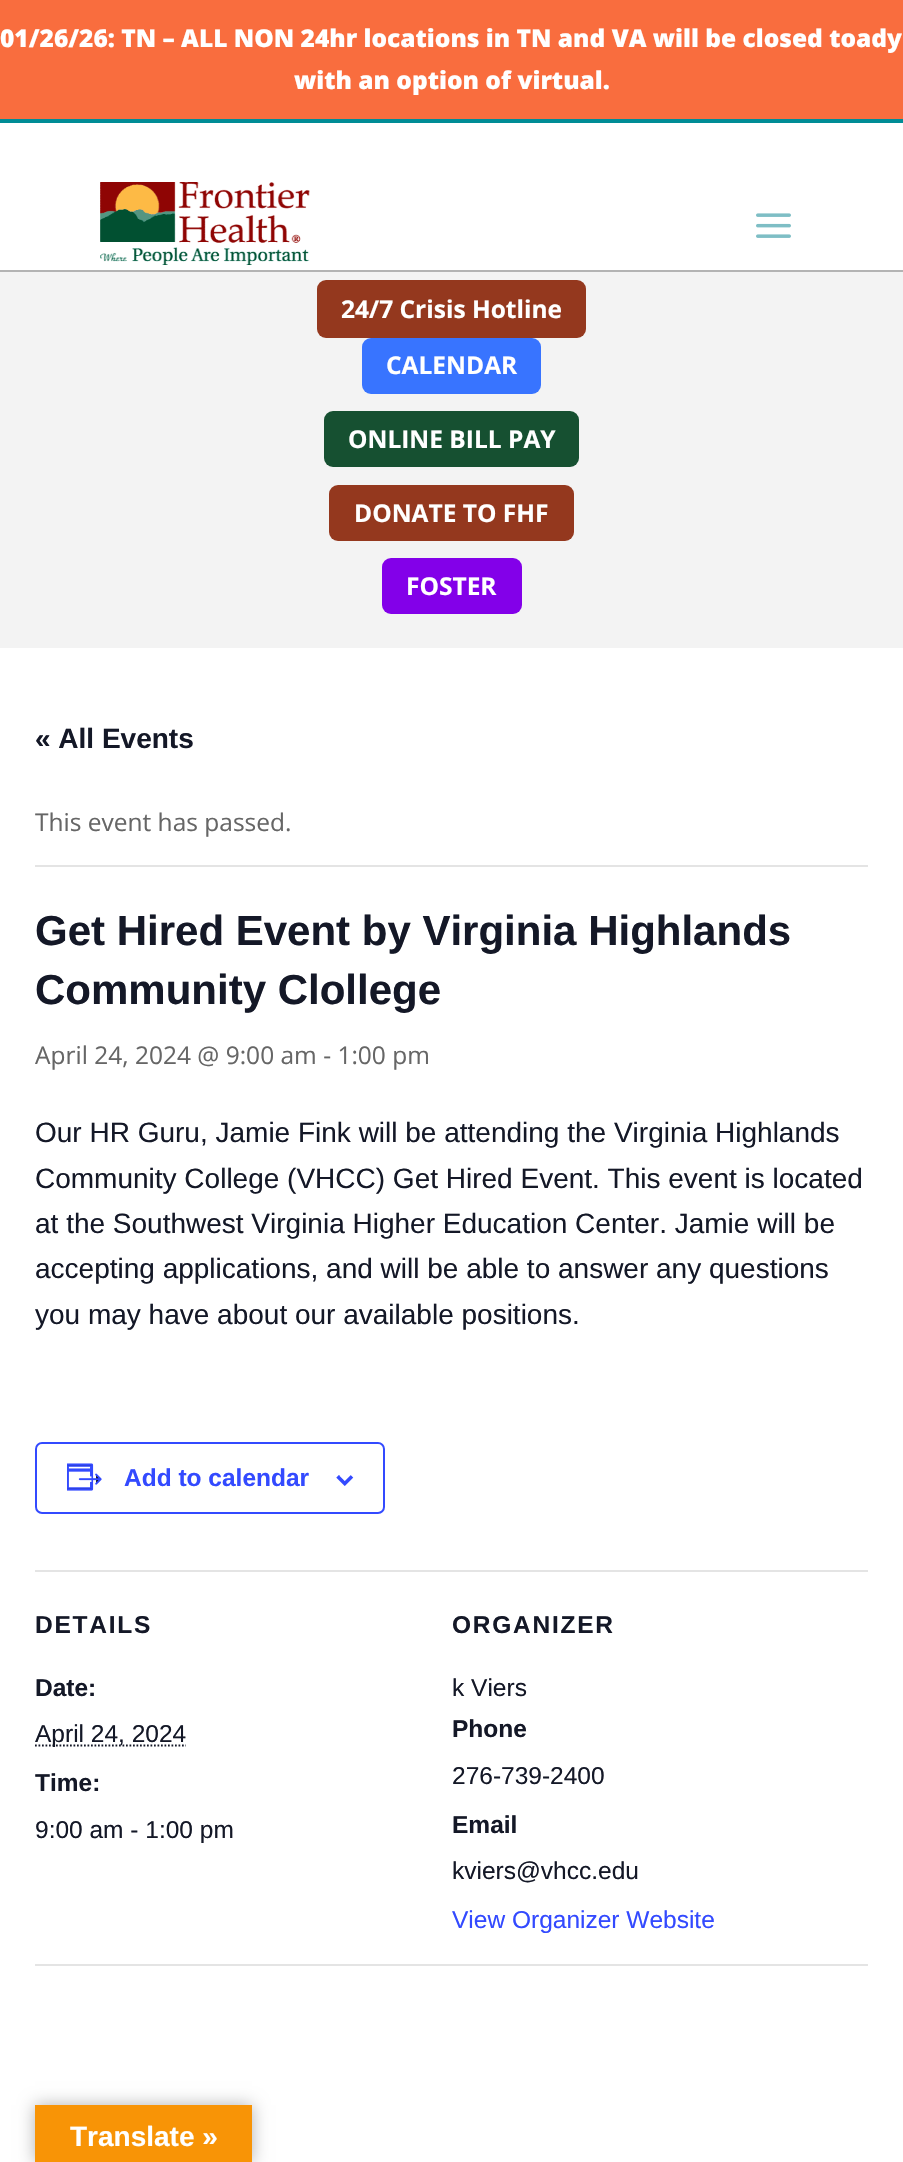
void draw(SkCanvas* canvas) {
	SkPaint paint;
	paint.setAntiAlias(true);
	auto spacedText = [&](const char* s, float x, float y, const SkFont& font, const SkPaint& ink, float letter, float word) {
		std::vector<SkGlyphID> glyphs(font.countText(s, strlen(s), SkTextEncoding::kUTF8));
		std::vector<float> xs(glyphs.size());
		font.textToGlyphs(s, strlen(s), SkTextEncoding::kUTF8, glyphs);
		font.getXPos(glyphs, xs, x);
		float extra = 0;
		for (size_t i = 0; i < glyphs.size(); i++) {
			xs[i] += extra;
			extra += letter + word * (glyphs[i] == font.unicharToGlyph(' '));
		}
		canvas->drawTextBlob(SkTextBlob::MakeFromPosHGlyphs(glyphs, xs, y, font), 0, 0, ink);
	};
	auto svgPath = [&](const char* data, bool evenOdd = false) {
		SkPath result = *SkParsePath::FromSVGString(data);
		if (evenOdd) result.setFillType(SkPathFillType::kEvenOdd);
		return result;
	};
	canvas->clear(0xffffffff);
	paint.setColor(0xffb3b3b3);
	canvas->drawRect(SkRect::MakeXYWH(0, 270, 903, 2), paint);
	paint.setColor(0xfff96d3e);
	canvas->drawRect(SkRect::MakeXYWH(0, 0, 903, 119), paint);
	paint.setColor(0xff008c96);
	canvas->drawRect(SkRect::MakeXYWH(0, 119, 903, 4), paint);
	SkFont f1(fontMgr->matchFamilyStyle("Open Sans", SkFontStyle(800, SkFontStyle::kNormal_Width, SkFontStyle::kUpright_Slant)), 24.5);
	f1.setSubpixel(true);
	paint.setColor(0xffffffff);
	canvas->drawString("01/26/26: TN – ALL NON 24hr locations in TN and VA will be closed toady", 0, 47, f1, paint);
	canvas->drawString("with an option of virtual.", 294, 89, f1, paint);
	canvas->drawImageRect(SkImages::DeferredFromEncodedData(SkData::MakeFromFileName("img1.png")), SkRect::MakeXYWH(100, 182, 210, 83), SkSamplingOptions());
	canvas->drawImageRect(SkImages::DeferredFromEncodedData(SkData::MakeFromFileName("img2.png")), SkRect::MakeXYWH(756, 213, 35, 25), SkSamplingOptions());
	paint.setColor(0xfff3f3f3);
	canvas->drawRect(SkRect::MakeXYWH(0, 272, 903, 376), paint);
	paint.setColor(0xff94381e);
	canvas->drawRoundRect(SkRect::MakeXYWH(317, 280, 269, 58), 9, 9, paint);
	SkFont f2(fontMgr->matchFamilyStyle("Open Sans", SkFontStyle::Bold()), 24.5);
	f2.setSubpixel(true);
	paint.setColor(0xffffffff);
	canvas->drawString("24/7 Crisis Hotline", 341, 318, f2, paint);
	paint.setColor(0xff3874ff);
	canvas->drawRoundRect(SkRect::MakeXYWH(362, 338, 179, 56), 9, 9, paint);
	paint.setColor(0xffffffff);
	canvas->drawString("CALENDAR", 386, 374, f2, paint);
	paint.setColor(0xff165031);
	canvas->drawRoundRect(SkRect::MakeXYWH(324, 411, 255, 56), 9, 9, paint);
	paint.setColor(0xffffffff);
	canvas->drawString("ONLINE BILL PAY", 348, 448, f2, paint);
	paint.setColor(0xff94381e);
	canvas->drawRoundRect(SkRect::MakeXYWH(329, 485, 245, 56), 9, 9, paint);
	paint.setColor(0xffffffff);
	canvas->drawString("DONATE TO FHF", 354, 522, f2, paint);
	paint.setColor(0xff8300e9);
	canvas->drawRoundRect(SkRect::MakeXYWH(382, 558, 140, 56), 9, 9, paint);
	paint.setColor(0xffffffff);
	canvas->drawString("FOSTER", 406, 595, f2, paint);
	SkFont f3(fontMgr->matchFamilyStyle("Liberation Sans", SkFontStyle::Bold()), 28);
	f3.setSubpixel(true);
	paint.setColor(0xff141827);
	canvas->drawString("« All Events", 35, 748, f3, paint);
	paint.setColor(0xffe4e4e4);
	canvas->drawRect(SkRect::MakeXYWH(35, 865, 833, 2), paint);
	SkFont f4(fontMgr->matchFamilyStyle("Open Sans", SkFontStyle::Normal()), 24.5);
	f4.setSubpixel(true);
	paint.setColor(0xff666666);
	canvas->drawString("This event has passed.", 35, 831, f4, paint);
	SkFont f5(fontMgr->matchFamilyStyle("Liberation Sans", SkFontStyle::Bold()), 42);
	f5.setSubpixel(true);
	paint.setColor(0xff141827);
	canvas->drawString("Get Hired Event by Virginia Highlands", 35, 945, f5, paint);
	canvas->drawString("Community Clollege", 35, 1004, f5, paint);
	paint.setColor(0xff666666);
	canvas->drawString("April 24, 2024 @ 9:00 am - 1:00 pm", 35, 1064, f4, paint);
	SkFont f6(fontMgr->matchFamilyStyle("Liberation Sans", SkFontStyle::Normal()), 28);
	f6.setSubpixel(true);
	paint.setColor(0xff141827);
	canvas->drawString("Our HR Guru, Jamie Fink will be attending the Virginia Highlands", 35, 1142, f6, paint);
	canvas->drawString("Community College (VHCC) Get Hired Event. This event is located", 35, 1188, f6, paint);
	canvas->drawString("at the Southwest Virginia Higher Education Center. Jamie will be", 35, 1233, f6, paint);
	canvas->drawString("accepting applications, and will be able to answer any questions", 35, 1278, f6, paint);
	canvas->drawString("you may have about our available positions.", 35, 1324, f6, paint);
	paint.setStroke(true);
	paint.setStrokeWidth(2);
	paint.setColor(0xff334aff);
	canvas->drawRoundRect(SkRect::MakeXYWH(36, 1443, 348, 70), 6, 6, paint);
	canvas->drawImageRect(SkImages::DeferredFromEncodedData(SkData::MakeFromFileName("img3.png")), SkRect::MakeXYWH(67, 1463, 35, 28), SkSamplingOptions());
	SkFont f7(fontMgr->matchFamilyStyle("Liberation Sans", SkFontStyle::Bold()), 24.5);
	f7.setSubpixel(true);
	paint.setStroke(false);
	canvas->drawString("Add to calendar", 124, 1486, f7, paint);
	canvas->drawImageRect(SkImages::DeferredFromEncodedData(SkData::MakeFromFileName("img4.png")), SkRect::MakeXYWH(336, 1475, 18, 11), SkSamplingOptions());
	paint.setColor(0xffe4e4e4);
	canvas->drawRect(SkRect::MakeXYWH(35, 1570, 833, 2), paint);
	paint.setColor(0xff141827);
	spacedText("DETAILS", 35, 1633, f7, paint, 1.75, 0);
	canvas->drawString("Date:", 35, 1696, f7, paint);
	paint.setStroke(true);
	paint.setStrokeWidth(1.8);
	paint.setPathEffect(SkDashPathEffect::Make({{1.75f, 1.75f}}, 0));
	canvas->drawPath(svgPath("M35 1745.5H186"), paint);
	paint.setPathEffect(nullptr);
	SkFont f8(fontMgr->matchFamilyStyle("Liberation Sans", SkFontStyle::Normal()), 24.5);
	f8.setSubpixel(true);
	paint.setStroke(false);
	canvas->drawString("April 24, 2024", 35, 1742, f8, paint);
	canvas->drawString("Time:", 35, 1791, f7, paint);
	canvas->drawString("9:00 am - 1:00 pm", 35, 1838, f8, paint);
	spacedText("ORGANIZER", 452, 1633, f7, paint, 1.75, 0);
	canvas->drawString("k Viers", 452, 1696, f8, paint);
	canvas->drawString("Phone", 452, 1737, f7, paint);
	canvas->drawString("276-739-2400", 452, 1784, f8, paint);
	canvas->drawString("Email", 452, 1833, f7, paint);
	canvas->drawString("kviers@vhcc.edu", 452, 1879, f8, paint);
	paint.setColor(0xff334aff);
	canvas->drawString("View Organizer Website", 452, 1928, f8, paint);
	paint.setColor(0xffe4e4e4);
	canvas->drawRect(SkRect::MakeXYWH(35, 1964, 833, 2), paint);
	paint.setColor(0x4d000000);
	paint.setMaskFilter(SkMaskFilter::MakeBlur(kNormal_SkBlurStyle, 8));
	canvas->drawRect(SkRect::MakeXYWH(35, 2105, 217, 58), paint);
	paint.setMaskFilter(nullptr);
	paint.setColor(0xfff89406);
	canvas->drawRect(SkRect::MakeXYWH(35, 2105, 217, 57), paint);
	paint.setColor(0xffffffff);
	canvas->drawString("Translate »", 70, 2146, f3, paint);
}
